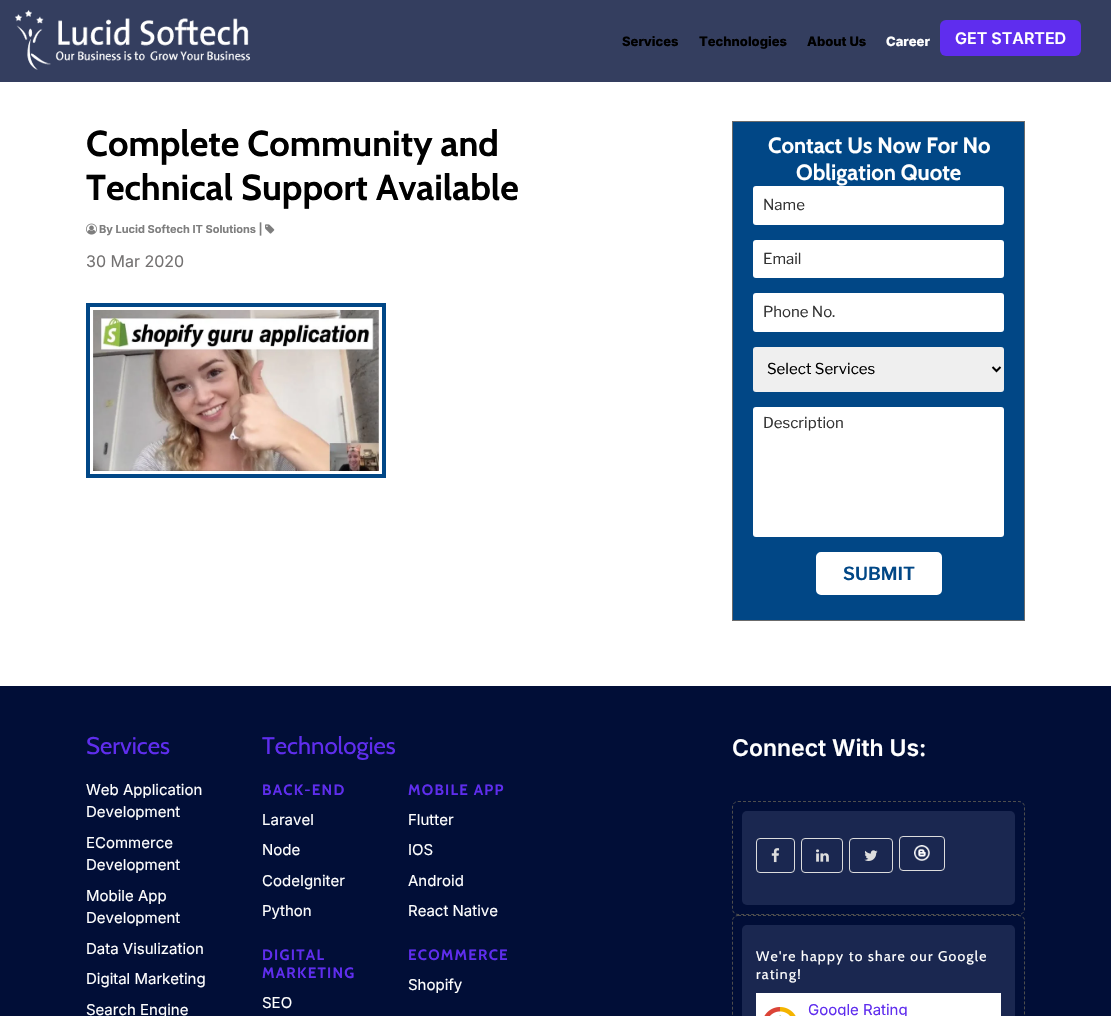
void draw(SkCanvas* canvas) {
	SkPaint paint;
	paint.setAntiAlias(true);
	auto spacedText = [&](const char* s, float x, float y, const SkFont& font, const SkPaint& ink, float letter, float word) {
		std::vector<SkGlyphID> glyphs(font.countText(s, strlen(s), SkTextEncoding::kUTF8));
		std::vector<float> xs(glyphs.size());
		font.textToGlyphs(s, strlen(s), SkTextEncoding::kUTF8, glyphs);
		font.getXPos(glyphs, xs, x);
		float extra = 0;
		for (size_t i = 0; i < glyphs.size(); i++) {
			xs[i] += extra;
			extra += letter + word * (glyphs[i] == font.unicharToGlyph(' '));
		}
		canvas->drawTextBlob(SkTextBlob::MakeFromPosHGlyphs(glyphs, xs, y, font), 0, 0, ink);
	};
	auto svgPath = [&](const char* data, bool evenOdd = false) {
		SkPath result = *SkParsePath::FromSVGString(data);
		if (evenOdd) result.setFillType(SkPathFillType::kEvenOdd);
		return result;
	};
	canvas->clear(0xffffffff);
	paint.setColor(0xff343e5f);
	canvas->drawRect(SkRect::MakeXYWH(0, 0, 1111, 82), paint);
	canvas->drawImageRect(SkImages::DeferredFromEncodedData(SkData::MakeFromFileName("img1.png")), SkRect::MakeXYWH(15, 10, 235, 60), SkSamplingOptions());
	SkFont f1(fontMgr->matchFamilyStyle("Inter", SkFontStyle(800, SkFontStyle::kNormal_Width, SkFontStyle::kUpright_Slant)), 13);
	f1.setSubpixel(true);
	paint.setColor(0xff000000);
	canvas->drawString("Services", 622, 46, f1, paint);
	canvas->drawString("Technologies", 699, 46, f1, paint);
	canvas->drawString("About Us", 807, 46, f1, paint);
	paint.setColor(0xffffffff);
	canvas->drawString("Career", 886, 46, f1, paint);
	paint.setColor(0xff5f2dee);
	canvas->drawRoundRect(SkRect::MakeXYWH(940, 20, 141, 36), 6, 6, paint);
	SkFont f2(fontMgr->matchFamilyStyle("Inter", SkFontStyle(600, SkFontStyle::kNormal_Width, SkFontStyle::kUpright_Slant)), 16);
	f2.setSubpixel(true);
	paint.setColor(0xffffffff);
	canvas->drawString("GET STARTED", 955, 44, f2, paint);
	SkFont f3(fontMgr->matchFamilyStyle("Cabin", SkFontStyle::Bold()), 36);
	f3.setSubpixel(true);
	paint.setColor(0xff000000);
	canvas->drawString("Complete Community and", 86, 156, f3, paint);
	canvas->drawString("Technical Support Available", 86, 200, f3, paint);
	canvas->drawImageRect(SkImages::DeferredFromEncodedData(SkData::MakeFromFileName("img2.png")), SkRect::MakeXYWH(86, 223, 11, 12), SkSamplingOptions());
	SkFont f4(fontMgr->matchFamilyStyle("Inter", SkFontStyle::Bold()), 11);
	f4.setSubpixel(true);
	paint.setColor(0xff7e7e7e);
	canvas->drawString("By Lucid Softech IT Solutions |", 99, 233, f4, paint);
	canvas->drawImageRect(SkImages::DeferredFromEncodedData(SkData::MakeFromFileName("img3.png")), SkRect::MakeXYWH(265, 224, 10, 10), SkSamplingOptions());
	SkFont f5(fontMgr->matchFamilyStyle("Inter", SkFontStyle::Normal()), 16);
	f5.setSubpixel(true);
	paint.setColor(0xff747272);
	canvas->drawString("30 Mar 2020", 86, 267, f5, paint);
	paint.setStroke(true);
	paint.setStrokeWidth(4);
	paint.setColor(0xff014786);
	canvas->drawRect(SkRect::MakeXYWH(88, 305, 296, 171), paint);
	canvas->drawImageRect(SkImages::DeferredFromEncodedData(SkData::MakeFromFileName("img4.png")), SkRect::MakeXYWH(93, 310, 286, 161), SkSamplingOptions());
	paint.setStroke(false);
	canvas->drawRect(SkRect::MakeXYWH(732.5, 121.5, 292, 499), paint);
	paint.setStroke(true);
	paint.setStrokeWidth(1);
	paint.setColor(0xff6b6b6b);
	canvas->drawRect(SkRect::MakeXYWH(732.5, 121.5, 292, 499), paint);
	SkFont f6(fontMgr->matchFamilyStyle("Cabin", SkFontStyle::Bold()), 22);
	f6.setSubpixel(true);
	paint.setStroke(false);
	paint.setColor(0xffffffff);
	canvas->drawString("Contact Us Now For No", 768, 153, f6, paint);
	canvas->drawString("Obligation Quote", 796, 180, f6, paint);
	canvas->drawRoundRect(SkRect::MakeXYWH(753, 186, 251, 39), 3, 3, paint);
	SkFont f7(fontMgr->matchFamilyStyle("Libre Franklin", SkFontStyle::Normal()), 15);
	f7.setSubpixel(true);
	paint.setColor(0xff333333);
	canvas->drawString("Name", 763, 210, f7, paint);
	paint.setColor(0xffffffff);
	canvas->drawRoundRect(SkRect::MakeXYWH(753, 240, 251, 38), 3, 3, paint);
	paint.setColor(0xff333333);
	canvas->drawString("Email", 763, 264, f7, paint);
	paint.setColor(0xffffffff);
	canvas->drawRoundRect(SkRect::MakeXYWH(753, 293, 251, 39), 3, 3, paint);
	paint.setColor(0xff333333);
	canvas->drawString("Phone No.", 763, 317, f7, paint);
	paint.setColor(0xffefefef);
	canvas->drawRoundRect(SkRect::MakeXYWH(753, 347, 251, 45), 3, 3, paint);
	paint.setStroke(true);
	paint.setStrokeWidth(2);
	paint.setColor(0xff000000);
	canvas->drawPath(svgPath("M992.5 367L996.5 371L1000.5 367"), paint);
	paint.setStroke(false);
	canvas->drawString("Select Services", 767, 374, f7, paint);
	paint.setColor(0xffffffff);
	canvas->drawRoundRect(SkRect::MakeXYWH(753, 407, 251, 130), 3, 3, paint);
	paint.setColor(0xff333333);
	canvas->drawString("Description", 763, 428, f7, paint);
	paint.setColor(0xffffffff);
	canvas->drawRoundRect(SkRect::MakeXYWH(817, 553, 124, 41), 4, 4, paint);
	paint.setStroke(true);
	canvas->drawRoundRect(SkRect::MakeXYWH(817, 553, 124, 41), 4, 4, paint);
	SkFont f8(fontMgr->matchFamilyStyle("Libre Franklin", SkFontStyle(600, SkFontStyle::kNormal_Width, SkFontStyle::kUpright_Slant)), 18);
	f8.setSubpixel(true);
	paint.setStroke(false);
	paint.setColor(0xff014786);
	canvas->drawString("SUBMIT", 843, 580, f8, paint);
	paint.setColor(0xff010e37);
	canvas->drawRect(SkRect::MakeXYWH(0, 686, 1111, 330), paint);
	SkFont f9(fontMgr->matchFamilyStyle("Cabin", SkFontStyle::Normal()), 24);
	f9.setSubpixel(true);
	paint.setColor(0xff5f2dee);
	canvas->drawString("Services", 86, 754, f9, paint);
	SkFont f10(fontMgr->matchFamilyStyle("Inter", SkFontStyle::Normal()), 15);
	f10.setSubpixel(true);
	paint.setColor(0xffffffff);
	canvas->drawString("Web Application", 86, 795, f10, paint);
	canvas->drawString("Development", 86, 817, f10, paint);
	canvas->drawString("ECommerce", 86, 848, f10, paint);
	canvas->drawString("Development", 86, 870, f10, paint);
	canvas->drawString("Mobile App", 86, 901, f10, paint);
	canvas->drawString("Development", 86, 923, f10, paint);
	canvas->drawString("Data Visulization", 86, 954, f10, paint);
	canvas->drawString("Digital Marketing", 86, 984, f10, paint);
	canvas->drawString("Search Engine", 86, 1015, f10, paint);
	paint.setColor(0xff5f2dee);
	canvas->drawString("Technologies", 262, 754, f9, paint);
	SkFont f11(fontMgr->matchFamilyStyle("Cabin", SkFontStyle::Bold()), 15);
	f11.setSubpixel(true);
	spacedText("BACK-END", 262, 795, f11, paint, 1.25, 0);
	paint.setColor(0xffffffff);
	canvas->drawString("Laravel", 262, 825, f10, paint);
	canvas->drawString("Node", 262, 855, f10, paint);
	canvas->drawString("CodeIgniter", 262, 886, f10, paint);
	canvas->drawString("Python", 262, 916, f10, paint);
	paint.setColor(0xff5f2dee);
	spacedText("DIGITAL", 262, 960, f11, paint, 1.25, 0);
	spacedText("MARKETING", 262, 978, f11, paint, 1.25, 0);
	paint.setColor(0xffffffff);
	canvas->drawString("SEO", 262, 1008, f10, paint);
	paint.setColor(0xff5f2dee);
	spacedText("MOBILE APP", 408, 795, f11, paint, 1.25, 0);
	paint.setColor(0xffffffff);
	canvas->drawString("Flutter", 408, 825, f10, paint);
	canvas->drawString("IOS", 408, 855, f10, paint);
	canvas->drawString("Android", 408, 886, f10, paint);
	canvas->drawString("React Native", 408, 916, f10, paint);
	paint.setColor(0xff5f2dee);
	spacedText("ECOMMERCE", 408, 960, f11, paint, 1.25, 0);
	paint.setColor(0xffffffff);
	canvas->drawString("Shopify", 408, 990, f10, paint);
	SkFont f12(fontMgr->matchFamilyStyle("Inter", SkFontStyle(600, SkFontStyle::kNormal_Width, SkFontStyle::kUpright_Slant)), 23);
	f12.setSubpixel(true);
	canvas->drawString("Connect With Us:", 732, 756, f12, paint);
	paint.setStroke(true);
	paint.setStrokeWidth(1);
	paint.setColor(0xff4d4d4d);
	paint.setPathEffect(SkDashPathEffect::Make({{3, 2}}, 0));
	canvas->drawPath(svgPath("M738 801.5H1019C1022 801.5 1024.5 804 1024.5 807V909C1024.5 912 1022 914.5 1019 914.5H738C735 914.5 732.5 912 732.5 909V807C732.5 804 735 801.5 738 801.5Z"), paint);
	paint.setPathEffect(nullptr);
	paint.setStroke(false);
	paint.setColor(0xff1a2750);
	canvas->drawRoundRect(SkRect::MakeXYWH(742, 811, 273, 94), 5, 5, paint);
	paint.setStroke(true);
	paint.setColor(0xffdddddd);
	canvas->drawRoundRect(SkRect::MakeXYWH(756.5, 838.5, 38, 34), 3.5, 3.5, paint);
	canvas->drawImageRect(SkImages::DeferredFromEncodedData(SkData::MakeFromFileName("img5.png")), SkRect::MakeXYWH(771, 848, 9, 15), SkSamplingOptions());
	canvas->drawRoundRect(SkRect::MakeXYWH(801.5, 838.5, 41, 34), 3.5, 3.5, paint);
	canvas->drawImageRect(SkImages::DeferredFromEncodedData(SkData::MakeFromFileName("img6.png")), SkRect::MakeXYWH(816, 849, 13, 13), SkSamplingOptions());
	canvas->drawRoundRect(SkRect::MakeXYWH(849.5, 838.5, 43, 34), 3.5, 3.5, paint);
	canvas->drawImageRect(SkImages::DeferredFromEncodedData(SkData::MakeFromFileName("img7.png")), SkRect::MakeXYWH(864, 850, 14, 11), SkSamplingOptions());
	canvas->drawRoundRect(SkRect::MakeXYWH(899.5, 836.5, 45, 34), 3.5, 3.5, paint);
	canvas->drawImageRect(SkImages::DeferredFromEncodedData(SkData::MakeFromFileName("img8.png")), SkRect::MakeXYWH(914, 845, 16, 16), SkSamplingOptions());
	paint.setColor(0xff4d4d4d);
	paint.setPathEffect(SkDashPathEffect::Make({{3, 2}}, 0));
	canvas->drawPath(svgPath("M738 915.5H1019C1022 915.5 1024.5 918 1024.5 921V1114C1024.5 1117 1022 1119.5 1019 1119.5H738C735 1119.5 732.5 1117 732.5 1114V921C732.5 918 735 915.5 738 915.5Z"), paint);
	paint.setPathEffect(nullptr);
	paint.setStroke(false);
	paint.setColor(0xff1a2750);
	canvas->drawRoundRect(SkRect::MakeXYWH(742, 925, 273, 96), 5, 5, paint);
	SkFont f13(fontMgr->matchFamilyStyle("Cabin", SkFontStyle::Normal()), 14);
	f13.setSubpixel(true);
	paint.setColor(0xffffffff);
	spacedText("We're happy to share our Google", 756, 961, f13, paint, 1.25, 0);
	spacedText("rating!", 756, 979, f13, paint, 1.25, 0);
	canvas->drawRect(SkRect::MakeXYWH(756, 993, 245, 23), paint);
	canvas->drawImageRect(SkImages::DeferredFromEncodedData(SkData::MakeFromFileName("img9.png")), SkRect::MakeXYWH(764, 1007, 32, 9), SkSamplingOptions());
	paint.setColor(0xff5f2dee);
	canvas->drawString("Google Rating", 808, 1015, f10, paint);
}
